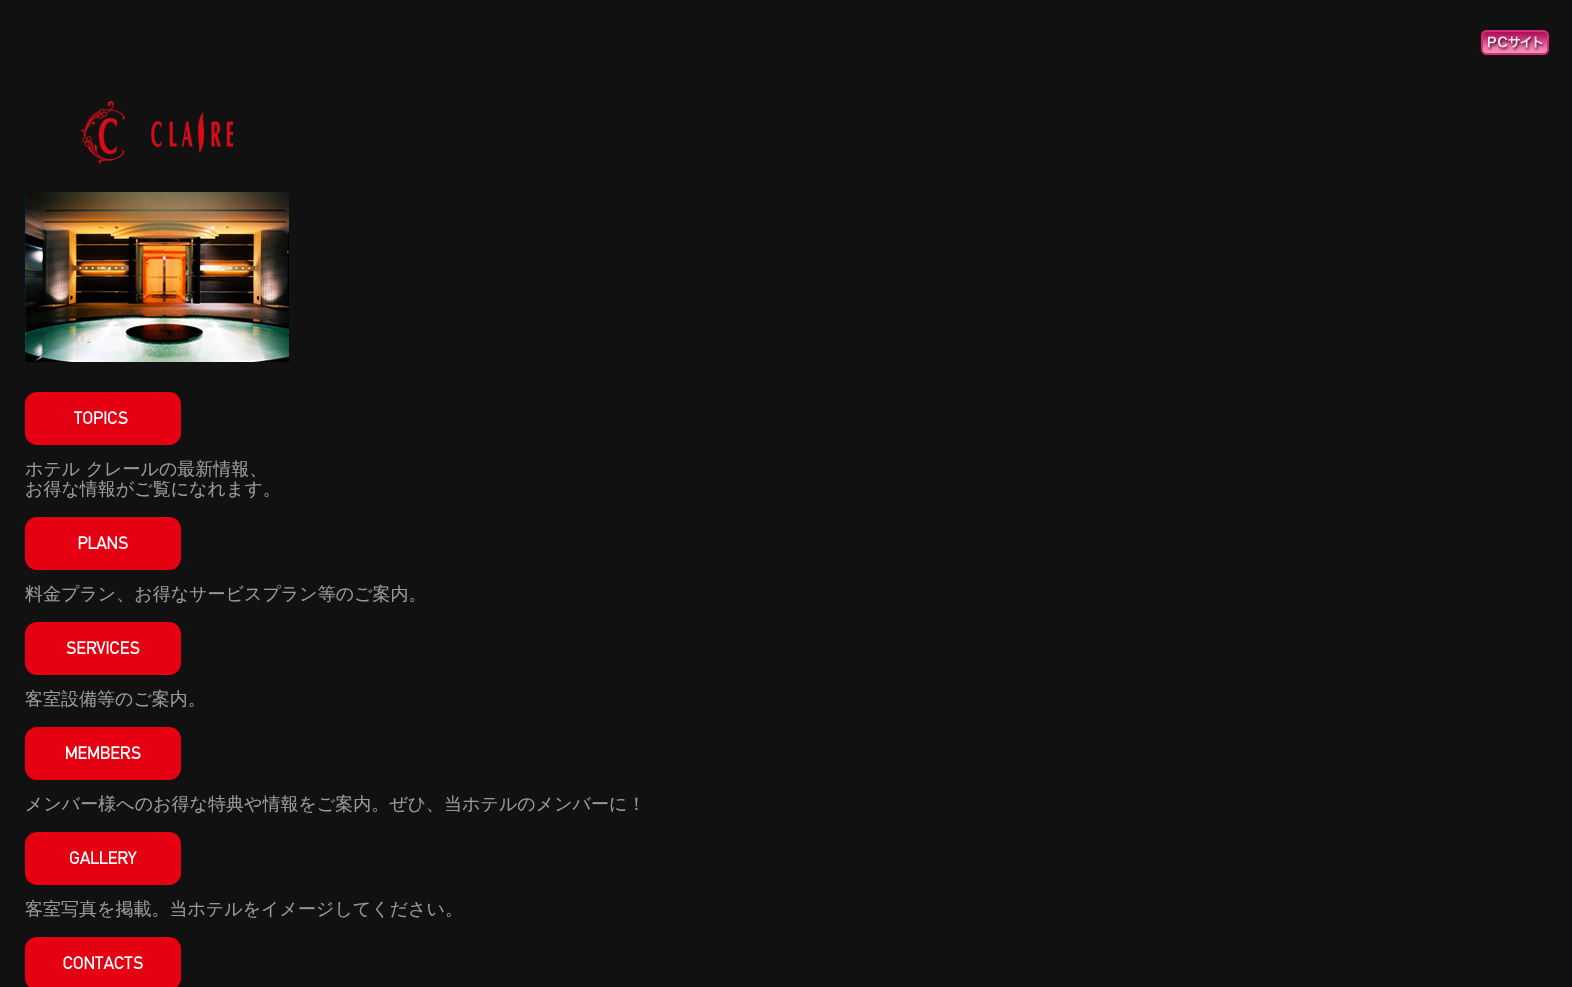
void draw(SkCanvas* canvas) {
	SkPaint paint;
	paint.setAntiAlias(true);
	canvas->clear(0xff111111);
	canvas->drawImageRect(SkImages::DeferredFromEncodedData(SkData::MakeFromFileName("img1.png")), SkRect::MakeXYWH(1481, 30, 68, 25), SkSamplingOptions());
	canvas->drawImageRect(SkImages::DeferredFromEncodedData(SkData::MakeFromFileName("img2.png")), SkRect::MakeXYWH(81, 101, 152, 63), SkSamplingOptions());
	canvas->drawImageRect(SkImages::DeferredFromEncodedData(SkData::MakeFromFileName("img3.png")), SkRect::MakeXYWH(25, 192, 264, 170), SkSamplingOptions());
	canvas->drawImageRect(SkImages::DeferredFromEncodedData(SkData::MakeFromFileName("img4.png")), SkRect::MakeXYWH(25, 392, 156, 53), SkSamplingOptions());
	SkFont f1(fontMgr->matchFamilyStyle("WenQuanYi Zen Hei", SkFontStyle(500, SkFontStyle::kNormal_Width, SkFontStyle::kUpright_Slant)), 18);
	f1.setSubpixel(true);
	paint.setColor(0xff999999);
	canvas->drawString("ホテル クレールの最新情報、", 25, 475, f1, paint);
	canvas->drawString("お得な情報がご覧になれます。", 25, 495, f1, paint);
	canvas->drawImageRect(SkImages::DeferredFromEncodedData(SkData::MakeFromFileName("img5.png")), SkRect::MakeXYWH(25, 517, 156, 53), SkSamplingOptions());
	canvas->drawString("料金プラン、お得なサービスプラン等のご案内。", 25, 600, f1, paint);
	canvas->drawImageRect(SkImages::DeferredFromEncodedData(SkData::MakeFromFileName("img6.png")), SkRect::MakeXYWH(25, 622, 156, 53), SkSamplingOptions());
	canvas->drawString("客室設備等のご案内。", 25, 705, f1, paint);
	canvas->drawImageRect(SkImages::DeferredFromEncodedData(SkData::MakeFromFileName("img7.png")), SkRect::MakeXYWH(25, 727, 156, 53), SkSamplingOptions());
	canvas->drawString("メンバー様へのお得な特典や情報をご案内。ぜひ、当ホテルのメンバーに！", 25, 810, f1, paint);
	canvas->drawImageRect(SkImages::DeferredFromEncodedData(SkData::MakeFromFileName("img8.png")), SkRect::MakeXYWH(25, 832, 156, 53), SkSamplingOptions());
	canvas->drawString("客室写真を掲載。当ホテルをイメージしてください。", 25, 915, f1, paint);
	canvas->drawImageRect(SkImages::DeferredFromEncodedData(SkData::MakeFromFileName("img9.png")), SkRect::MakeXYWH(25, 937, 156, 50), SkSamplingOptions());
}
